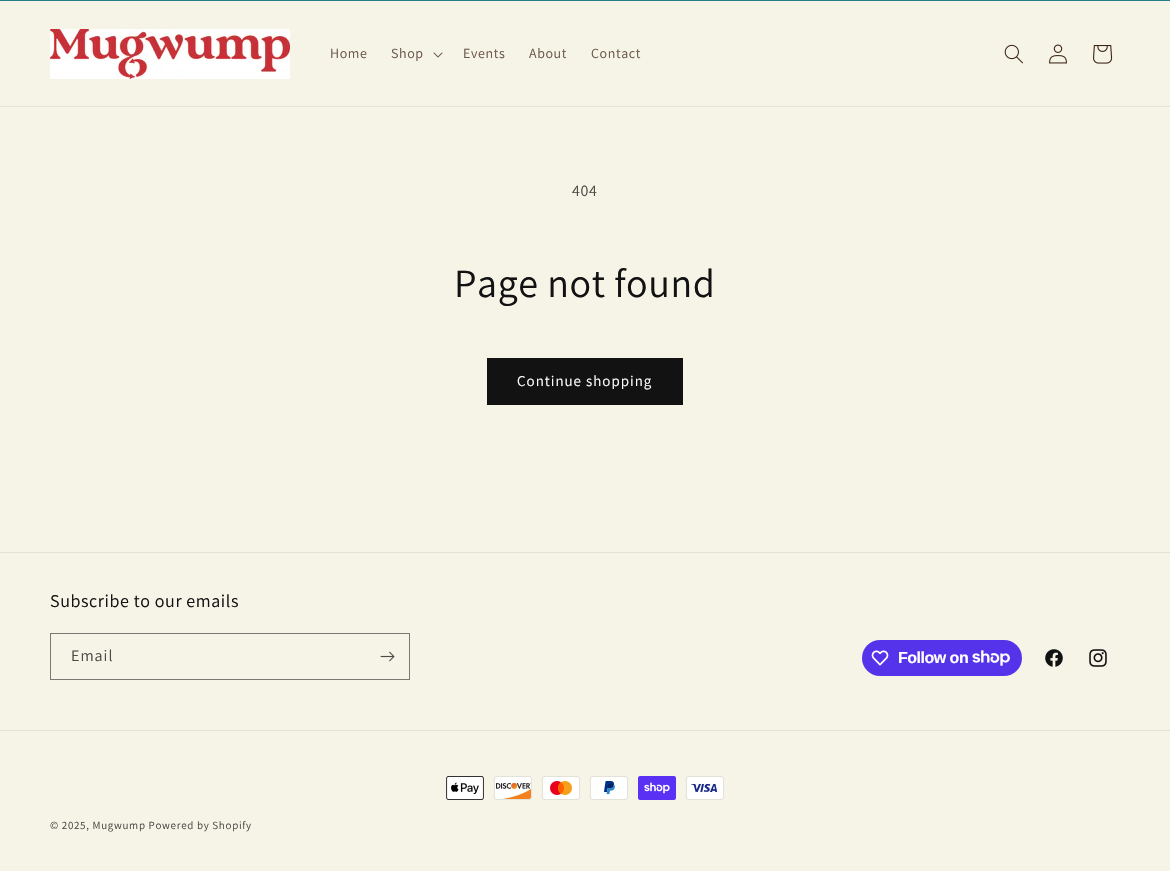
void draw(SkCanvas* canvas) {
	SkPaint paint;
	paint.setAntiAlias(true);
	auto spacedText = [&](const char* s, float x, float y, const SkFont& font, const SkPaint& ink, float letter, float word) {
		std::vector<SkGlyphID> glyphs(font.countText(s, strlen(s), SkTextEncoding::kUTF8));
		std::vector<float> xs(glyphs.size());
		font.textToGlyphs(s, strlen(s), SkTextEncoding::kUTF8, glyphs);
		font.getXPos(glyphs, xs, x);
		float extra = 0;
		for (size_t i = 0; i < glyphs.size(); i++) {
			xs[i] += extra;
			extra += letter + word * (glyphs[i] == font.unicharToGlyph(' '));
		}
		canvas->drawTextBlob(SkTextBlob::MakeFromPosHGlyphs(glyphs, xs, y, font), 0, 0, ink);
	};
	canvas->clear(0xfff6f4e7);
	paint.setColor(0xff237e86);
	canvas->drawRect(SkRect::MakeXYWH(0, 0, 1170, 1), paint);
	paint.setColor(0xffe7e3d6);
	canvas->drawRect(SkRect::MakeXYWH(0, 106, 1170, 1), paint);
	canvas->drawImageRect(SkImages::DeferredFromEncodedData(SkData::MakeFromFileName("img1.png")), SkRect::MakeXYWH(50, 29, 240, 50), SkSamplingOptions());
	SkFont f1(fontMgr->matchFamilyStyle("Assistant", SkFontStyle::Normal()), 14);
	f1.setSubpixel(true);
	paint.setColor(0xff6b5849);
	spacedText("Home", 330, 58, f1, paint, 0.6, 0);
	spacedText("Shop", 391, 58, f1, paint, 0.6, 0);
	canvas->drawImageRect(SkImages::DeferredFromEncodedData(SkData::MakeFromFileName("img2.png")), SkRect::MakeXYWH(433, 52, 10, 6), SkSamplingOptions());
	spacedText("Events", 463, 58, f1, paint, 0.6, 0);
	spacedText("About", 529, 58, f1, paint, 0.6, 0);
	spacedText("Contact", 591, 58, f1, paint, 0.6, 0);
	canvas->drawImageRect(SkImages::DeferredFromEncodedData(SkData::MakeFromFileName("img3.png")), SkRect::MakeXYWH(1004, 44, 19, 20), SkSamplingOptions());
	canvas->drawImageRect(SkImages::DeferredFromEncodedData(SkData::MakeFromFileName("img4.png")), SkRect::MakeXYWH(1049, 44, 18, 20), SkSamplingOptions());
	canvas->drawImageRect(SkImages::DeferredFromEncodedData(SkData::MakeFromFileName("img5.png")), SkRect::MakeXYWH(1093, 45, 20, 19), SkSamplingOptions());
	SkFont f2(fontMgr->matchFamilyStyle("Assistant", SkFontStyle::Normal()), 16);
	f2.setSubpixel(true);
	paint.setColor(0xff4b4b47);
	spacedText("404", 572, 196, f2, paint, 0.6, 0);
	SkFont f3(fontMgr->matchFamilyStyle("Assistant", SkFontStyle::Normal()), 40);
	f3.setSubpixel(true);
	paint.setColor(0xff121212);
	spacedText("Page not found", 454, 297, f3, paint, 0.6, 0);
	canvas->drawRect(SkRect::MakeXYWH(487, 358, 196, 47), paint);
	SkFont f4(fontMgr->matchFamilyStyle("Assistant", SkFontStyle::Normal()), 15);
	f4.setSubpixel(true);
	paint.setColor(0xffffffff);
	spacedText("Continue shopping", 517, 386, f4, paint, 1, 0);
	paint.setColor(0xffe4e2d6);
	canvas->drawRect(SkRect::MakeXYWH(0, 552, 1170, 1), paint);
	SkFont f5(fontMgr->matchFamilyStyle("Assistant", SkFontStyle::Normal()), 18);
	f5.setSubpixel(true);
	paint.setColor(0xff121212);
	spacedText("Subscribe to our emails", 50, 607, f5, paint, 0.6, 0);
	paint.setStroke(true);
	paint.setStrokeWidth(1);
	paint.setColor(0xff797872);
	canvas->drawRect(SkRect::MakeXYWH(50.5, 633.5, 359, 46), paint);
	paint.setStroke(false);
	paint.setColor(0xff4b4b47);
	spacedText("Email", 71, 661, f2, paint, 1, 0);
	canvas->drawImageRect(SkImages::DeferredFromEncodedData(SkData::MakeFromFileName("img6.png")), SkRect::MakeXYWH(380, 651, 15, 11), SkSamplingOptions());
	paint.setColor(0xff5433eb);
	canvas->drawRoundRect(SkRect::MakeXYWH(862, 640, 160, 36), 18, 18, paint);
	canvas->drawImageRect(SkImages::DeferredFromEncodedData(SkData::MakeFromFileName("img7.png")), SkRect::MakeXYWH(871, 650, 18, 16), SkSamplingOptions());
	SkFont f6(fontMgr->matchFamilyStyle("Liberation Sans", SkFontStyle::Bold()), 16);
	f6.setSubpixel(true);
	paint.setColor(0xffffffff);
	spacedText("Follow on", 898, 663, f6, paint, -0.5, 0);
	canvas->drawImageRect(SkImages::DeferredFromEncodedData(SkData::MakeFromFileName("img8.png")), SkRect::MakeXYWH(972, 650, 38, 16), SkSamplingOptions());
	canvas->drawImageRect(SkImages::DeferredFromEncodedData(SkData::MakeFromFileName("img9.png")), SkRect::MakeXYWH(1045, 649, 18, 18), SkSamplingOptions());
	canvas->drawImageRect(SkImages::DeferredFromEncodedData(SkData::MakeFromFileName("img10.png")), SkRect::MakeXYWH(1089, 649, 18, 18), SkSamplingOptions());
	paint.setColor(0xffe4e2d6);
	canvas->drawRect(SkRect::MakeXYWH(0, 730, 1170, 1), paint);
	canvas->drawImageRect(SkImages::DeferredFromEncodedData(SkData::MakeFromFileName("img11.png")), SkRect::MakeXYWH(446, 776, 38, 24), SkSamplingOptions());
	canvas->drawImageRect(SkImages::DeferredFromEncodedData(SkData::MakeFromFileName("img12.png")), SkRect::MakeXYWH(494, 776, 38, 24), SkSamplingOptions());
	canvas->drawImageRect(SkImages::DeferredFromEncodedData(SkData::MakeFromFileName("img13.png")), SkRect::MakeXYWH(542, 776, 38, 24), SkSamplingOptions());
	canvas->drawImageRect(SkImages::DeferredFromEncodedData(SkData::MakeFromFileName("img14.png")), SkRect::MakeXYWH(590, 776, 38, 24), SkSamplingOptions());
	canvas->drawImageRect(SkImages::DeferredFromEncodedData(SkData::MakeFromFileName("img15.png")), SkRect::MakeXYWH(638, 776, 38, 24), SkSamplingOptions());
	canvas->drawImageRect(SkImages::DeferredFromEncodedData(SkData::MakeFromFileName("img16.png")), SkRect::MakeXYWH(686, 776, 38, 24), SkSamplingOptions());
	SkFont f7(fontMgr->matchFamilyStyle("Assistant", SkFontStyle::Normal()), 11);
	f7.setSubpixel(true);
	paint.setColor(0xff4b4b47);
	spacedText("© 2025, Mugwump Powered by Shopify", 50, 829, f7, paint, 0.7, 0);
}
